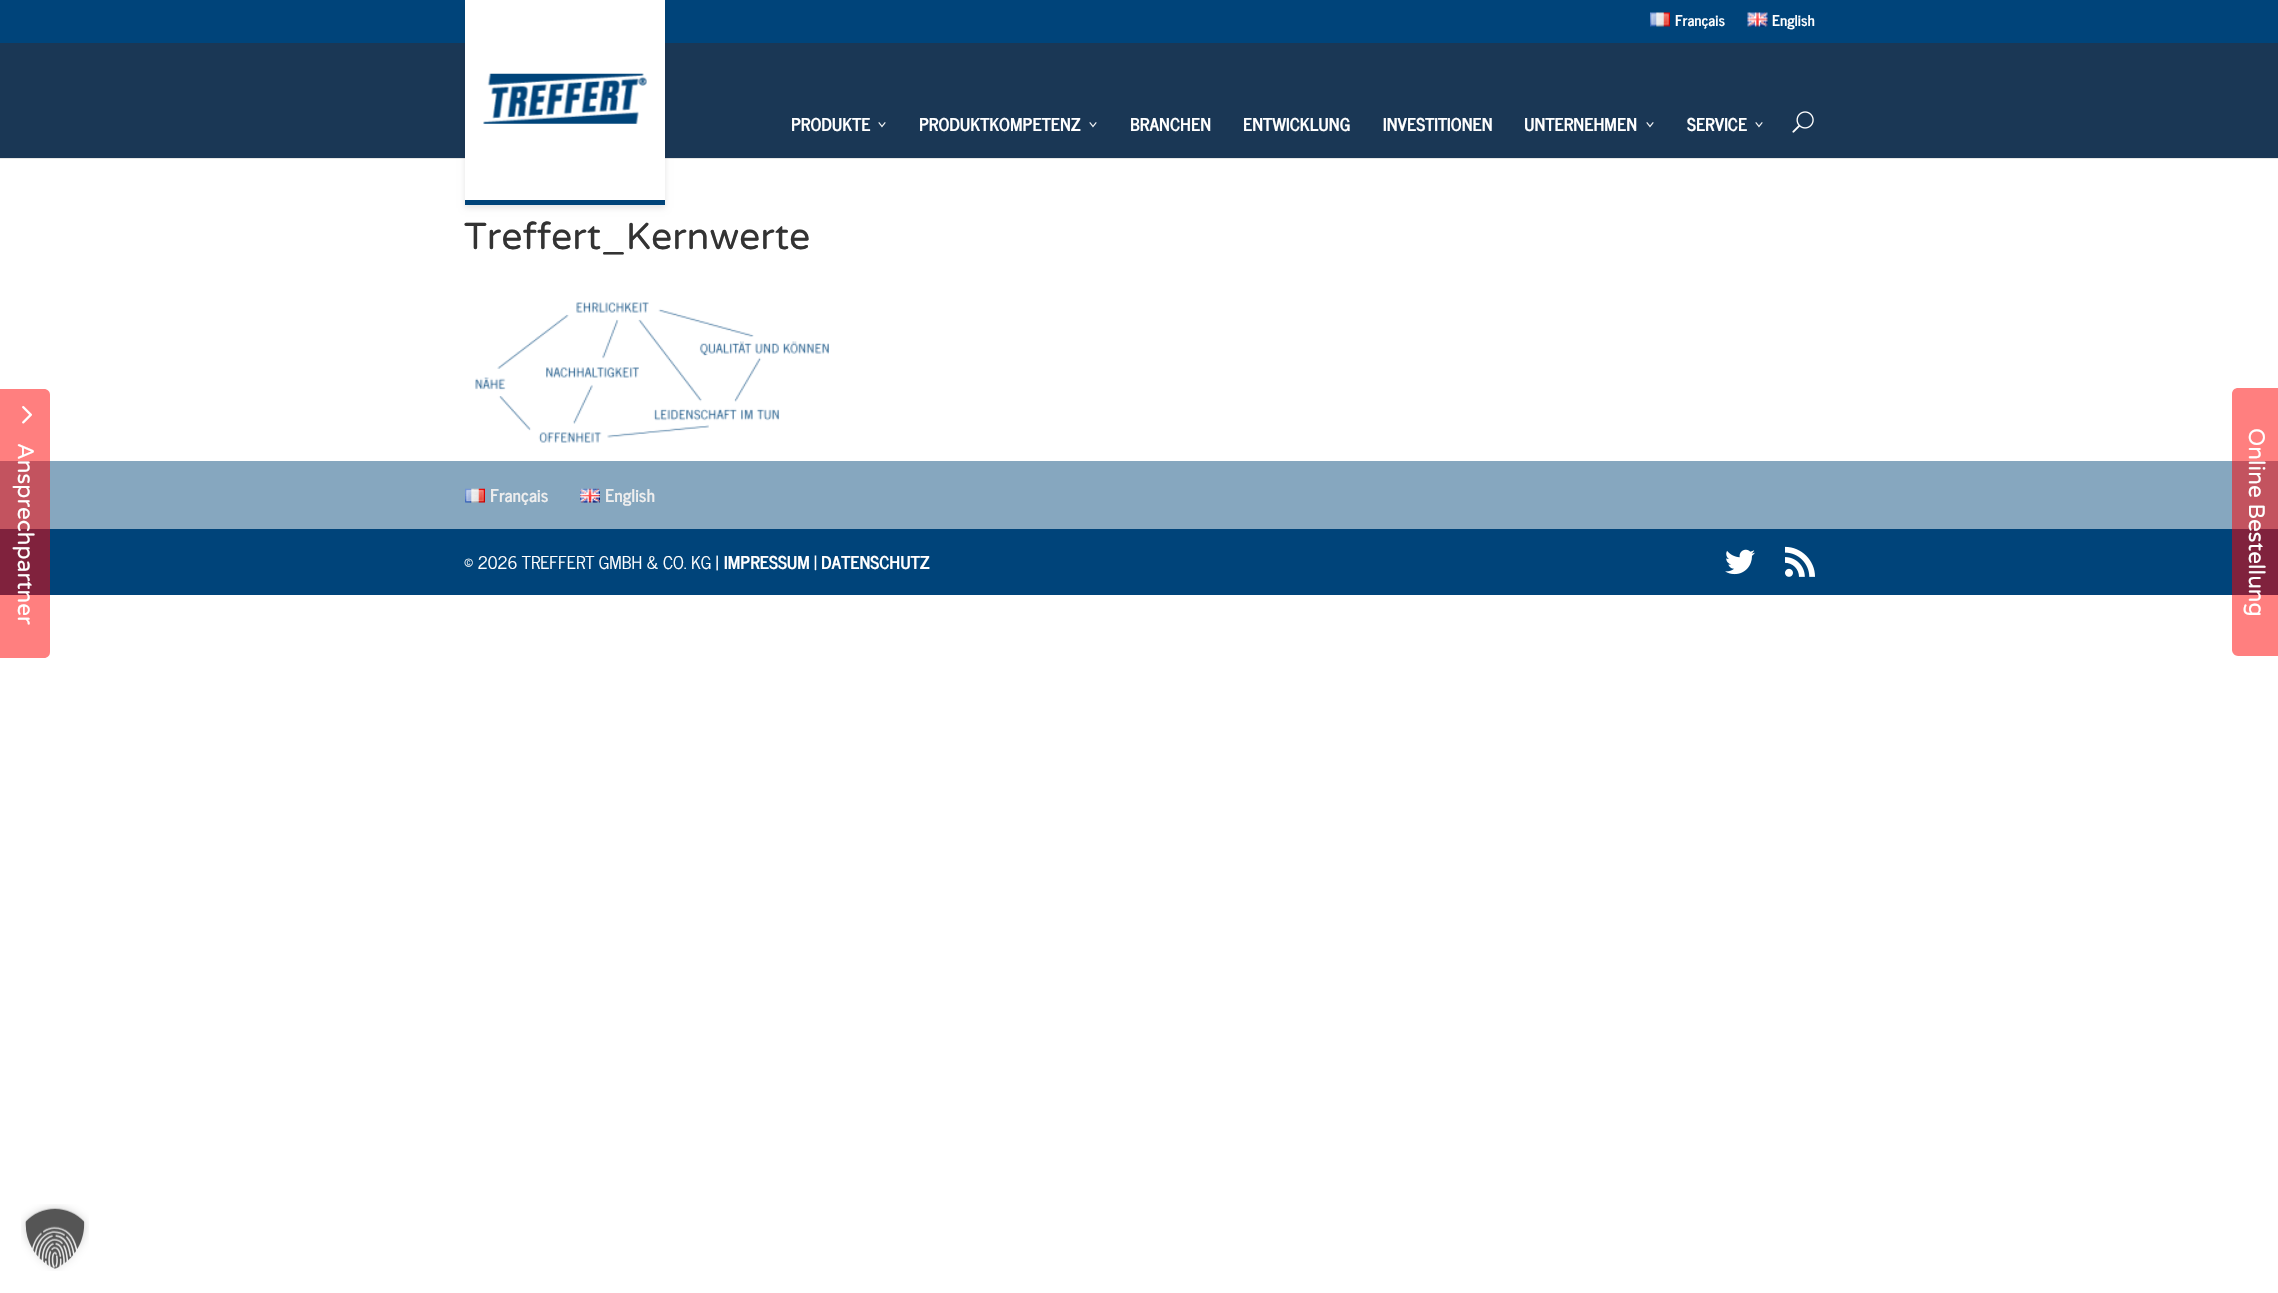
void draw(SkCanvas* canvas) {
	SkPaint paint;
	paint.setAntiAlias(true);
	auto svgPath = [&](const char* data, bool evenOdd = false) {
		SkPath result = *SkParsePath::FromSVGString(data);
		if (evenOdd) result.setFillType(SkPathFillType::kEvenOdd);
		return result;
	};
	canvas->clear(0xffffffff);
	paint.setColor(0xff00447a);
	canvas->drawRect(SkRect::MakeXYWH(0, 0, 2278, 43), paint);
	canvas->drawImageRect(SkImages::DeferredFromEncodedData(SkData::MakeFromFileName("img1.png")), SkRect::MakeXYWH(1650, 12, 20, 15), SkSamplingOptions());
	SkFont f1(fontMgr->matchFamilyStyle("News Cycle", SkFontStyle::Bold()), 15);
	f1.setSubpixel(true);
	paint.setColor(0xffffffff);
	canvas->drawString("Français", 1675, 26, f1, paint);
	canvas->drawImageRect(SkImages::DeferredFromEncodedData(SkData::MakeFromFileName("img2.png")), SkRect::MakeXYWH(1747, 12, 21, 15), SkSamplingOptions());
	canvas->drawString("English", 1772, 26, f1, paint);
	paint.setColor(0xffe6e6e6);
	canvas->drawPath(svgPath("M0 158V159H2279V44V158Z"), paint);
	paint.setColor(0xff1a3755);
	canvas->drawRect(SkRect::MakeXYWH(0, 43, 2278, 115), paint);
	paint.setColor(0x1a000000);
	paint.setMaskFilter(SkMaskFilter::MakeBlur(kNormal_SkBlurStyle, 3));
	canvas->drawRect(SkRect::MakeXYWH(465, 3, 200, 205), paint);
	paint.setMaskFilter(nullptr);
	paint.setColor(0xffffffff);
	canvas->drawRect(SkRect::MakeXYWH(465, 0, 200, 200), paint);
	paint.setColor(0xff00447a);
	canvas->drawRect(SkRect::MakeXYWH(465, 200, 200, 5), paint);
	canvas->drawImageRect(SkImages::DeferredFromEncodedData(SkData::MakeFromFileName("img3.png")), SkRect::MakeXYWH(483, 73, 164, 51), SkSamplingOptions());
	SkFont f2(fontMgr->matchFamilyStyle("News Cycle", SkFontStyle::Bold()), 17.5);
	f2.setSubpixel(true);
	paint.setColor(0xffffffff);
	canvas->drawString("PRODUKTE", 791, 131, f2, paint);
	SkFont f3(fontMgr->matchFamilyStyle("News Cycle", SkFontStyle::Bold()), 11);
	f3.setSubpixel(true);
	canvas->save();
	canvas->rotate(90, 878, 122);
	canvas->drawString(">", 878, 122, f3, paint);
	canvas->restore();
	canvas->drawString("PRODUKTKOMPETENZ", 919, 131, f2, paint);
	canvas->save();
	canvas->rotate(90, 1089, 122);
	canvas->drawString(">", 1089, 122, f3, paint);
	canvas->restore();
	canvas->drawString("BRANCHEN", 1130, 131, f2, paint);
	canvas->drawString("ENTWICKLUNG", 1243, 131, f2, paint);
	canvas->drawString("INVESTITIONEN", 1383, 131, f2, paint);
	canvas->drawString("UNTERNEHMEN", 1524, 131, f2, paint);
	canvas->save();
	canvas->rotate(90, 1646, 122);
	canvas->drawString(">", 1646, 122, f3, paint);
	canvas->restore();
	canvas->drawString("SERVICE", 1687, 131, f2, paint);
	canvas->save();
	canvas->rotate(90, 1755, 122);
	canvas->drawString(">", 1755, 122, f3, paint);
	canvas->restore();
	canvas->drawImageRect(SkImages::DeferredFromEncodedData(SkData::MakeFromFileName("img4.png")), SkRect::MakeXYWH(1792, 111, 22, 22), SkSamplingOptions());
	SkFont f4(fontMgr->matchFamilyStyle("Varela Round", SkFontStyle::Normal()), 37.5);
	f4.setSubpixel(true);
	paint.setColor(0xff333333);
	canvas->drawString("Treffert_Kernwerte", 464, 249, f4, paint);
	canvas->drawImageRect(SkImages::DeferredFromEncodedData(SkData::MakeFromFileName("img5.png")), SkRect::MakeXYWH(475, 302, 354, 141), SkSamplingOptions());
	paint.setColor(0xff86a7bf);
	canvas->drawRect(SkRect::MakeXYWH(0, 461, 2278, 68), paint);
	paint.setColor(0xff00447a);
	canvas->drawRect(SkRect::MakeXYWH(0, 529, 2278, 66), paint);
	paint.setColor(0x80ff0000);
	canvas->drawPath(svgPath("M0 389H44C47.5 389 50 391.5 50 395V652C50 655.5 47.5 658 44 658H0Z"), paint);
	canvas->drawImageRect(SkImages::DeferredFromEncodedData(SkData::MakeFromFileName("img6.png")), SkRect::MakeXYWH(22, 406, 10, 18), SkSamplingOptions());
	SkFont f5(fontMgr->matchFamilyStyle("Varela Round", SkFontStyle::Normal()), 22.5);
	f5.setSubpixel(true);
	paint.setColor(0xffffffff);
	canvas->save();
	canvas->rotate(90, 18, 443);
	canvas->drawString("Ansprechpartner", 18, 443, f5, paint);
	canvas->restore();
	canvas->drawImageRect(SkImages::DeferredFromEncodedData(SkData::MakeFromFileName("img7.png")), SkRect::MakeXYWH(465, 488, 20, 15), SkSamplingOptions());
	paint.setColor(0xffeeeeee);
	canvas->drawString("Français", 490, 502, f2, paint);
	canvas->drawImageRect(SkImages::DeferredFromEncodedData(SkData::MakeFromFileName("img8.png")), SkRect::MakeXYWH(580, 488, 20, 15), SkSamplingOptions());
	canvas->drawString("English", 605, 502, f2, paint);
	SkFont f6(fontMgr->matchFamilyStyle("News Cycle", SkFontStyle::Normal()), 17.5);
	f6.setSubpixel(true);
	paint.setColor(0xffffffff);
	canvas->drawString("© 2026 TREFFERT GMBH & CO. KG |", 464, 569, f6, paint);
	canvas->drawString("IMPRESSUM", 724, 569, f2, paint);
	canvas->drawString("|", 814, 569, f6, paint);
	canvas->drawString("DATENSCHUTZ", 821, 569, f2, paint);
	canvas->drawImageRect(SkImages::DeferredFromEncodedData(SkData::MakeFromFileName("img9.png")), SkRect::MakeXYWH(1725, 549, 30, 26), SkSamplingOptions());
	canvas->drawImageRect(SkImages::DeferredFromEncodedData(SkData::MakeFromFileName("img10.png")), SkRect::MakeXYWH(1785, 546, 30, 31), SkSamplingOptions());
	paint.setColor(0x80ff0000);
	canvas->drawPath(svgPath("M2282 388V656H2238C2235 656 2232 653 2232 650V394C2232 390 2235 388 2238 388Z"), paint);
	paint.setColor(0xffffffff);
	canvas->save();
	canvas->rotate(90, 2249, 428);
	canvas->drawString("Online Bestellung", 2249, 428, f5, paint);
	canvas->restore();
	canvas->drawImageRect(SkImages::DeferredFromEncodedData(SkData::MakeFromFileName("img11.png")), SkRect::MakeXYWH(21, 1204, 68, 67), SkSamplingOptions());
}
